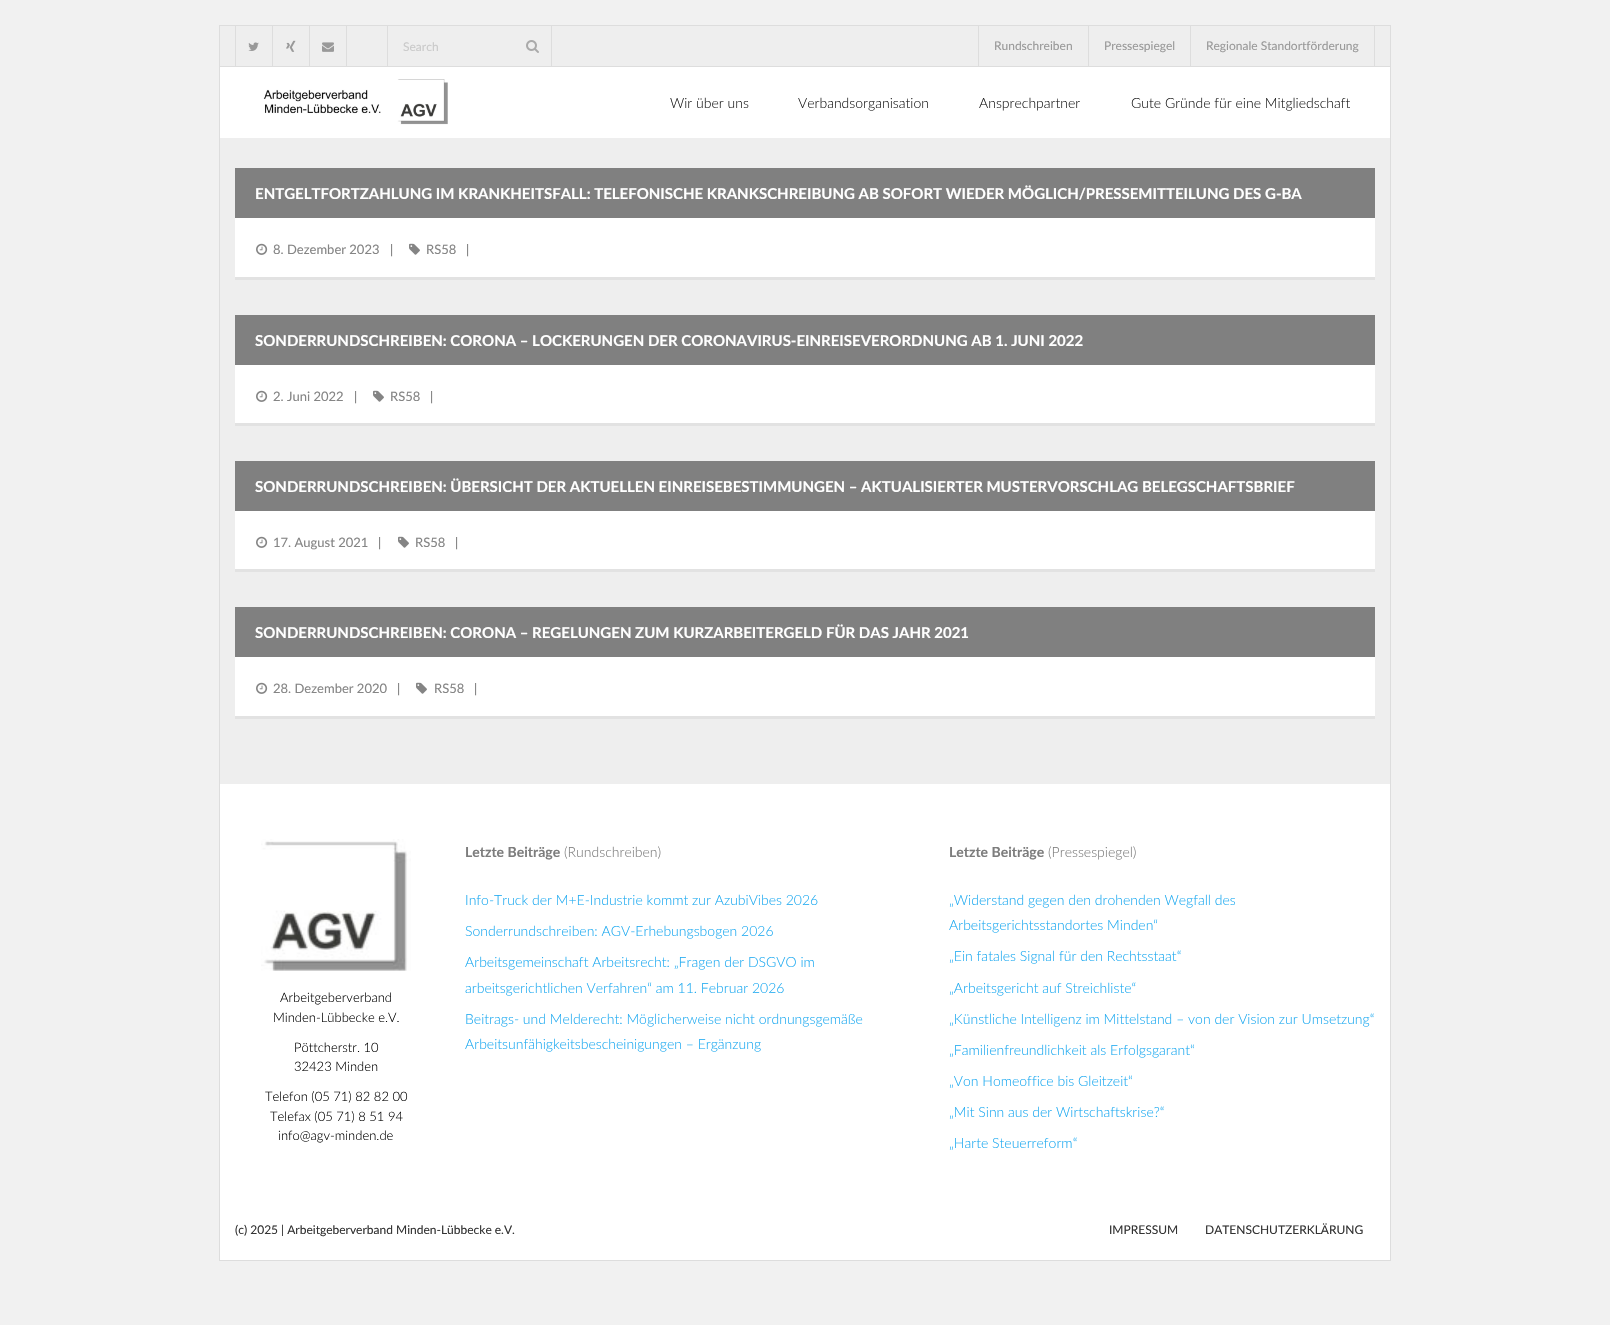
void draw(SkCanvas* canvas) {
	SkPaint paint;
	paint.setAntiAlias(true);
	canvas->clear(0xfff1f1f1);
	paint.setColor(0xffeeeeee);
	canvas->drawRect(SkRect::MakeXYWH(220, 26, 1170, 758), paint);
	paint.setStroke(true);
	paint.setStrokeWidth(1);
	paint.setColor(0xffdddddd);
	canvas->drawRect(SkRect::MakeXYWH(219.5, 25.5, 1171, 1235), paint);
	paint.setStroke(false);
	canvas->drawRect(SkRect::MakeXYWH(220, 66, 1170, 1), paint);
	canvas->drawRect(SkRect::MakeXYWH(235, 26, 1, 40), paint);
	canvas->drawImageRect(SkImages::DeferredFromEncodedData(SkData::MakeFromFileName("img1.png")), SkRect::MakeXYWH(248, 42, 11, 9), SkSamplingOptions());
	canvas->drawRect(SkRect::MakeXYWH(272, 26, 1, 40), paint);
	canvas->drawImageRect(SkImages::DeferredFromEncodedData(SkData::MakeFromFileName("img2.png")), SkRect::MakeXYWH(286, 40, 10, 12), SkSamplingOptions());
	canvas->drawRect(SkRect::MakeXYWH(346, 26, 1, 40), paint);
	canvas->drawRect(SkRect::MakeXYWH(309, 26, 1, 40), paint);
	canvas->drawImageRect(SkImages::DeferredFromEncodedData(SkData::MakeFromFileName("img3.png")), SkRect::MakeXYWH(322, 42, 12, 10), SkSamplingOptions());
	canvas->drawRect(SkRect::MakeXYWH(551, 26, 1, 40), paint);
	canvas->drawRect(SkRect::MakeXYWH(387, 26, 1, 40), paint);
	SkFont f1(fontMgr->matchFamilyStyle("Lato", SkFontStyle::Normal()), 12);
	f1.setSubpixel(true);
	paint.setColor(0xffcacaca);
	canvas->drawString("Search", 403, 51, f1, paint);
	canvas->drawImageRect(SkImages::DeferredFromEncodedData(SkData::MakeFromFileName("img4.png")), SkRect::MakeXYWH(526, 40, 13, 13), SkSamplingOptions());
	paint.setColor(0xffdddddd);
	canvas->drawRect(SkRect::MakeXYWH(978, 26, 1, 40), paint);
	paint.setColor(0xff999999);
	canvas->drawString("Rundschreiben", 994, 50, f1, paint);
	paint.setColor(0xffdddddd);
	canvas->drawRect(SkRect::MakeXYWH(1088, 26, 1, 40), paint);
	paint.setColor(0xff999999);
	canvas->drawString("Pressespiegel", 1104, 50, f1, paint);
	paint.setColor(0xffdddddd);
	canvas->drawRect(SkRect::MakeXYWH(1374, 26, 1, 40), paint);
	canvas->drawRect(SkRect::MakeXYWH(1190, 26, 1, 40), paint);
	paint.setColor(0xff999999);
	canvas->drawString("Regionale Standortförderung", 1206, 50, f1, paint);
	paint.setColor(0xffffffff);
	canvas->drawRect(SkRect::MakeXYWH(220, 67, 1170, 71), paint);
	canvas->drawImageRect(SkImages::DeferredFromEncodedData(SkData::MakeFromFileName("img5.png")), SkRect::MakeXYWH(263, 79, 185, 46), SkSamplingOptions());
	SkFont f2(fontMgr->matchFamilyStyle("Lato", SkFontStyle(300, SkFontStyle::kNormal_Width, SkFontStyle::kUpright_Slant)), 14);
	f2.setSubpixel(true);
	paint.setColor(0xff1e1e1e);
	canvas->drawString("Wir über uns", 670, 108, f2, paint);
	canvas->drawString("Verbandsorganisation", 798, 108, f2, paint);
	canvas->drawString("Ansprechpartner", 979, 108, f2, paint);
	canvas->drawString("Gute Gründe für eine Mitgliedschaft", 1131, 108, f2, paint);
	paint.setColor(0xffffffff);
	canvas->drawRect(SkRect::MakeXYWH(235, 218, 1140, 59), paint);
	paint.setColor(0xffe2e2e2);
	canvas->drawRect(SkRect::MakeXYWH(235, 277, 1140, 3), paint);
	paint.setColor(0xff808080);
	canvas->drawRect(SkRect::MakeXYWH(235, 168, 1140, 50), paint);
	SkFont f3(fontMgr->matchFamilyStyle("Lato", SkFontStyle::Bold()), 15);
	f3.setSubpixel(true);
	paint.setColor(0xffffffff);
	canvas->drawString("ENTGELTFORTZAHLUNG IM KRANKHEITSFALL: TELEFONISCHE KRANKSCHREIBUNG AB SOFORT WIEDER MÖGLICH/PRESSEMITTEILUNG DES G-BA", 255, 199, f3, paint);
	canvas->drawImageRect(SkImages::DeferredFromEncodedData(SkData::MakeFromFileName("img6.png")), SkRect::MakeXYWH(256, 243, 12, 12), SkSamplingOptions());
	SkFont f4(fontMgr->matchFamilyStyle("Lato", SkFontStyle::Normal()), 13);
	f4.setSubpixel(true);
	paint.setColor(0xff858585);
	canvas->drawString("8. Dezember 2023", 273, 254, f4, paint);
	paint.setColor(0xff777777);
	canvas->drawString("|", 390, 254, f4, paint);
	canvas->drawImageRect(SkImages::DeferredFromEncodedData(SkData::MakeFromFileName("img7.png")), SkRect::MakeXYWH(409, 243, 11, 12), SkSamplingOptions());
	paint.setColor(0xff858585);
	canvas->drawString("RS58", 426, 254, f4, paint);
	paint.setColor(0xff777777);
	canvas->drawString("|", 466, 254, f4, paint);
	paint.setColor(0xffffffff);
	canvas->drawRect(SkRect::MakeXYWH(235, 365, 1140, 58), paint);
	paint.setColor(0xffe2e2e2);
	canvas->drawRect(SkRect::MakeXYWH(235, 423, 1140, 3), paint);
	paint.setColor(0xff808080);
	canvas->drawRect(SkRect::MakeXYWH(235, 315, 1140, 50), paint);
	paint.setColor(0xffffffff);
	canvas->drawString("SONDERRUNDSCHREIBEN: CORONA – LOCKERUNGEN DER CORONAVIRUS-EINREISEVERORDNUNG AB 1. JUNI 2022", 255, 346, f3, paint);
	canvas->drawImageRect(SkImages::DeferredFromEncodedData(SkData::MakeFromFileName("img6.png")), SkRect::MakeXYWH(256, 390, 12, 12), SkSamplingOptions());
	paint.setColor(0xff858585);
	canvas->drawString("2. Juni 2022", 273, 401, f4, paint);
	paint.setColor(0xff777777);
	canvas->drawString("|", 354, 401, f4, paint);
	canvas->drawImageRect(SkImages::DeferredFromEncodedData(SkData::MakeFromFileName("img7.png")), SkRect::MakeXYWH(373, 390, 11, 12), SkSamplingOptions());
	paint.setColor(0xff858585);
	canvas->drawString("RS58", 390, 401, f4, paint);
	paint.setColor(0xff777777);
	canvas->drawString("|", 430, 401, f4, paint);
	paint.setColor(0xffffffff);
	canvas->drawRect(SkRect::MakeXYWH(235, 511, 1140, 58), paint);
	paint.setColor(0xffe2e2e2);
	canvas->drawRect(SkRect::MakeXYWH(235, 569, 1140, 3), paint);
	paint.setColor(0xff808080);
	canvas->drawRect(SkRect::MakeXYWH(235, 461, 1140, 50), paint);
	paint.setColor(0xffffffff);
	canvas->drawString("SONDERRUNDSCHREIBEN: ÜBERSICHT DER AKTUELLEN EINREISEBESTIMMUNGEN – AKTUALISIERTER MUSTERVORSCHLAG BELEGSCHAFTSBRIEF", 255, 492, f3, paint);
	canvas->drawImageRect(SkImages::DeferredFromEncodedData(SkData::MakeFromFileName("img6.png")), SkRect::MakeXYWH(256, 536, 12, 12), SkSamplingOptions());
	paint.setColor(0xff858585);
	canvas->drawString("17. August 2021", 273, 547, f4, paint);
	paint.setColor(0xff777777);
	canvas->drawString("|", 378, 547, f4, paint);
	canvas->drawImageRect(SkImages::DeferredFromEncodedData(SkData::MakeFromFileName("img7.png")), SkRect::MakeXYWH(398, 536, 11, 12), SkSamplingOptions());
	paint.setColor(0xff858585);
	canvas->drawString("RS58", 415, 547, f4, paint);
	paint.setColor(0xff777777);
	canvas->drawString("|", 455, 547, f4, paint);
	paint.setColor(0xffffffff);
	canvas->drawRect(SkRect::MakeXYWH(235, 657, 1140, 59), paint);
	paint.setColor(0xffe2e2e2);
	canvas->drawRect(SkRect::MakeXYWH(235, 716, 1140, 3), paint);
	paint.setColor(0xff808080);
	canvas->drawRect(SkRect::MakeXYWH(235, 607, 1140, 50), paint);
	paint.setColor(0xffffffff);
	canvas->drawString("SONDERRUNDSCHREIBEN: CORONA – REGELUNGEN ZUM KURZARBEITERGELD FÜR DAS JAHR 2021", 255, 638, f3, paint);
	canvas->drawImageRect(SkImages::DeferredFromEncodedData(SkData::MakeFromFileName("img6.png")), SkRect::MakeXYWH(256, 682, 12, 12), SkSamplingOptions());
	paint.setColor(0xff858585);
	canvas->drawString("28. Dezember 2020", 273, 693, f4, paint);
	paint.setColor(0xff777777);
	canvas->drawString("|", 397, 693, f4, paint);
	canvas->drawImageRect(SkImages::DeferredFromEncodedData(SkData::MakeFromFileName("img7.png")), SkRect::MakeXYWH(416, 682, 11, 12), SkSamplingOptions());
	paint.setColor(0xff858585);
	canvas->drawString("RS58", 434, 693, f4, paint);
	paint.setColor(0xff777777);
	canvas->drawString("|", 474, 693, f4, paint);
	paint.setColor(0xffffffff);
	canvas->drawRect(SkRect::MakeXYWH(220, 784, 1170, 476), paint);
	canvas->drawImageRect(SkImages::DeferredFromEncodedData(SkData::MakeFromFileName("img8.png")), SkRect::MakeXYWH(261, 839, 150, 132), SkSamplingOptions());
	SkFont f5(fontMgr->matchFamilyStyle("Lato", SkFontStyle(300, SkFontStyle::kNormal_Width, SkFontStyle::kUpright_Slant)), 13);
	f5.setSubpixel(true);
	paint.setColor(0xff000000);
	canvas->drawString("Arbeitgeberverband", 280, 1002, f5, paint);
	canvas->drawString("Minden-Lübbecke e.V.", 273, 1022, f5, paint);
	canvas->drawString("Pöttcherstr. 10", 294, 1052, f5, paint);
	canvas->drawString("32423 Minden", 294, 1071, f5, paint);
	canvas->drawString("Telefon (05 71) 82 82 00", 265, 1101, f5, paint);
	canvas->drawString("Telefax (05 71) 8 51 94", 270, 1121, f5, paint);
	canvas->drawString("info@agv-minden.de", 278, 1140, f5, paint);
	SkFont f6(fontMgr->matchFamilyStyle("Lato", SkFontStyle::Bold()), 14);
	f6.setSubpixel(true);
	paint.setColor(0xff7d7d7d);
	canvas->drawString("Letzte Beiträge", 465, 857, f6, paint);
	canvas->drawString("(Rundschreiben)", 564, 857, f2, paint);
	paint.setColor(0xff1eaaf1);
	canvas->drawString("Info-Truck der M+E-Industrie kommt zur AzubiVibes 2026", 465, 905, f2, paint);
	canvas->drawString("Sonderrundschreiben: AGV-Erhebungsbogen 2026", 465, 936, f2, paint);
	canvas->drawString("Arbeitsgemeinschaft Arbeitsrecht: „Fragen der DSGVO im", 465, 967, f2, paint);
	canvas->drawString("arbeitsgerichtlichen Verfahren“ am 11. Februar 2026", 465, 993, f2, paint);
	canvas->drawString("Beitrags- und Melderecht: Möglicherweise nicht ordnungsgemäße", 465, 1024, f2, paint);
	canvas->drawString("Arbeitsunfähigkeitsbescheinigungen – Ergänzung", 465, 1049, f2, paint);
	paint.setColor(0xff7d7d7d);
	canvas->drawString("Letzte Beiträge", 949, 857, f6, paint);
	canvas->drawString("(Pressespiegel)", 1048, 857, f2, paint);
	paint.setColor(0xff1eaaf1);
	canvas->drawString("„Widerstand gegen den drohenden Wegfall des", 949, 905, f2, paint);
	canvas->drawString("Arbeitsgerichtsstandortes Minden“", 949, 930, f2, paint);
	canvas->drawString("„Ein fatales Signal für den Rechtsstaat“", 949, 961, f2, paint);
	canvas->drawString("„Arbeitsgericht auf Streichliste“", 949, 993, f2, paint);
	canvas->drawString("„Künstliche Intelligenz im Mittelstand – von der Vision zur Umsetzung“", 949, 1024, f2, paint);
	canvas->drawString("„Familienfreundlichkeit als Erfolgsgarant“", 949, 1055, f2, paint);
	canvas->drawString("„Von Homeoffice bis Gleitzeit“", 949, 1086, f2, paint);
	canvas->drawString("„Mit Sinn aus der Wirtschaftskrise?“", 949, 1117, f2, paint);
	canvas->drawString("„Harte Steuerreform“", 949, 1148, f2, paint);
	paint.setColor(0xff333333);
	canvas->drawString("(c) 2025 | Arbeitgeberverband Minden-Lübbecke e.V.", 235, 1234, f1, paint);
	canvas->drawString("IMPRESSUM", 1109, 1234, f1, paint);
	canvas->drawString("DATENSCHUTZERKLÄRUNG", 1205, 1234, f1, paint);
}
